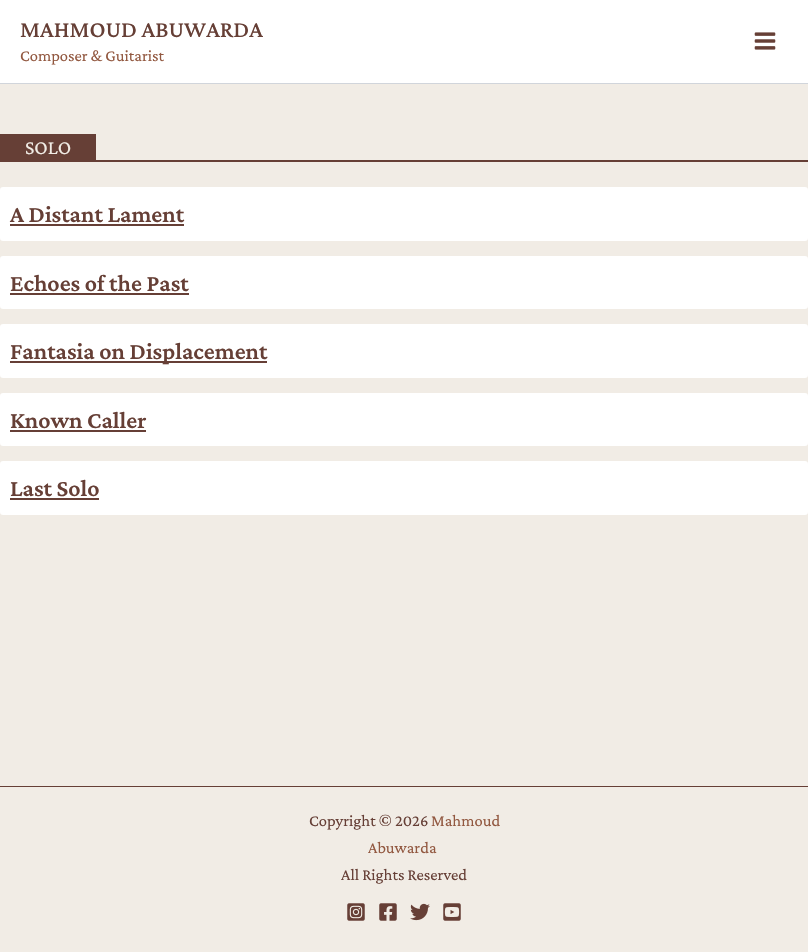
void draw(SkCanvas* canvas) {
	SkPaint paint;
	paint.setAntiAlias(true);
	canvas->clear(0xfff1ece5);
	paint.setColor(0xffffffff);
	canvas->drawRect(SkRect::MakeXYWH(0, 0, 808, 83), paint);
	paint.setColor(0xffd1d5db);
	canvas->drawRect(SkRect::MakeXYWH(0, 83, 808, 1), paint);
	SkFont f1(fontMgr->matchFamilyStyle("Crimson Pro", SkFontStyle(500, SkFontStyle::kNormal_Width, SkFontStyle::kUpright_Slant)), 23.75);
	f1.setSubpixel(true);
	paint.setColor(0xff663f36);
	canvas->drawString("MAHMOUD ABUWARDA", 20, 37, f1, paint);
	SkFont f2(fontMgr->matchFamilyStyle("Crimson Pro", SkFontStyle::Normal()), 16.5);
	f2.setSubpixel(true);
	paint.setColor(0xff925840);
	canvas->drawString("Composer & Guitarist", 20, 61, f2, paint);
	canvas->drawImageRect(SkImages::DeferredFromEncodedData(SkData::MakeFromFileName("img1.png")), SkRect::MakeXYWH(754, 32, 22, 18), SkSamplingOptions());
	paint.setColor(0xff663f36);
	canvas->drawRect(SkRect::MakeXYWH(0, 160, 808, 2), paint);
	canvas->drawRect(SkRect::MakeXYWH(0, 134, 96, 26), paint);
	SkFont f3(fontMgr->matchFamilyStyle("Crimson Pro", SkFontStyle::Normal()), 20);
	f3.setSubpixel(true);
	paint.setColor(0xfff1ece5);
	canvas->drawString("SOLO", 25, 154, f3, paint);
	paint.setColor(0xffffffff);
	canvas->drawRoundRect(SkRect::MakeXYWH(0, 187, 808, 54), 3, 3, paint);
	SkFont f4(fontMgr->matchFamilyStyle("Crimson Pro", SkFontStyle(600, SkFontStyle::kNormal_Width, SkFontStyle::kUpright_Slant)), 24);
	f4.setSubpixel(true);
	paint.setColor(0xff663f36);
	canvas->drawString("A Distant Lament", 10, 222, f4, paint);
	canvas->drawRect(SkRect::MakeXYWH(10, 224, 174, 2), paint);
	paint.setColor(0xffffffff);
	canvas->drawRoundRect(SkRect::MakeXYWH(0, 256, 808, 53), 3, 3, paint);
	paint.setColor(0xff663f36);
	canvas->drawString("Echoes of the Past", 10, 291, f4, paint);
	canvas->drawRect(SkRect::MakeXYWH(10, 293, 179, 2), paint);
	paint.setColor(0xffffffff);
	canvas->drawRoundRect(SkRect::MakeXYWH(0, 324, 808, 54), 3, 3, paint);
	paint.setColor(0xff663f36);
	canvas->drawRect(SkRect::MakeXYWH(10, 361, 257, 2), paint);
	canvas->drawString("Fantasia on Displacement", 10, 359, f4, paint);
	paint.setColor(0xffffffff);
	canvas->drawRoundRect(SkRect::MakeXYWH(0, 393, 808, 53), 3, 3, paint);
	paint.setColor(0xff663f36);
	canvas->drawString("Known Caller", 10, 428, f4, paint);
	canvas->drawRect(SkRect::MakeXYWH(10, 430, 136, 2), paint);
	paint.setColor(0xffffffff);
	canvas->drawRoundRect(SkRect::MakeXYWH(0, 461, 808, 54), 3, 3, paint);
	paint.setColor(0xff663f36);
	canvas->drawString("Last Solo", 10, 496, f4, paint);
	canvas->drawRect(SkRect::MakeXYWH(10, 498, 89, 2), paint);
	canvas->drawRect(SkRect::MakeXYWH(0, 786, 808, 1), paint);
	canvas->drawString("Copyright © 2026", 309, 826, f2, paint);
	paint.setColor(0xff925840);
	canvas->drawString("Mahmoud", 431, 826, f2, paint);
	canvas->drawString("Abuwarda", 368, 853, f2, paint);
	paint.setColor(0xff663f36);
	canvas->drawString("All Rights Reserved", 341, 880, f2, paint);
	canvas->drawImageRect(SkImages::DeferredFromEncodedData(SkData::MakeFromFileName("img2.png")), SkRect::MakeXYWH(347, 903, 18, 18), SkSamplingOptions());
	canvas->drawImageRect(SkImages::DeferredFromEncodedData(SkData::MakeFromFileName("img3.png")), SkRect::MakeXYWH(379, 903, 18, 18), SkSamplingOptions());
	canvas->drawImageRect(SkImages::DeferredFromEncodedData(SkData::MakeFromFileName("img4.png")), SkRect::MakeXYWH(410, 903, 20, 18), SkSamplingOptions());
	canvas->drawImageRect(SkImages::DeferredFromEncodedData(SkData::MakeFromFileName("img5.png")), SkRect::MakeXYWH(443, 903, 18, 18), SkSamplingOptions());
}
